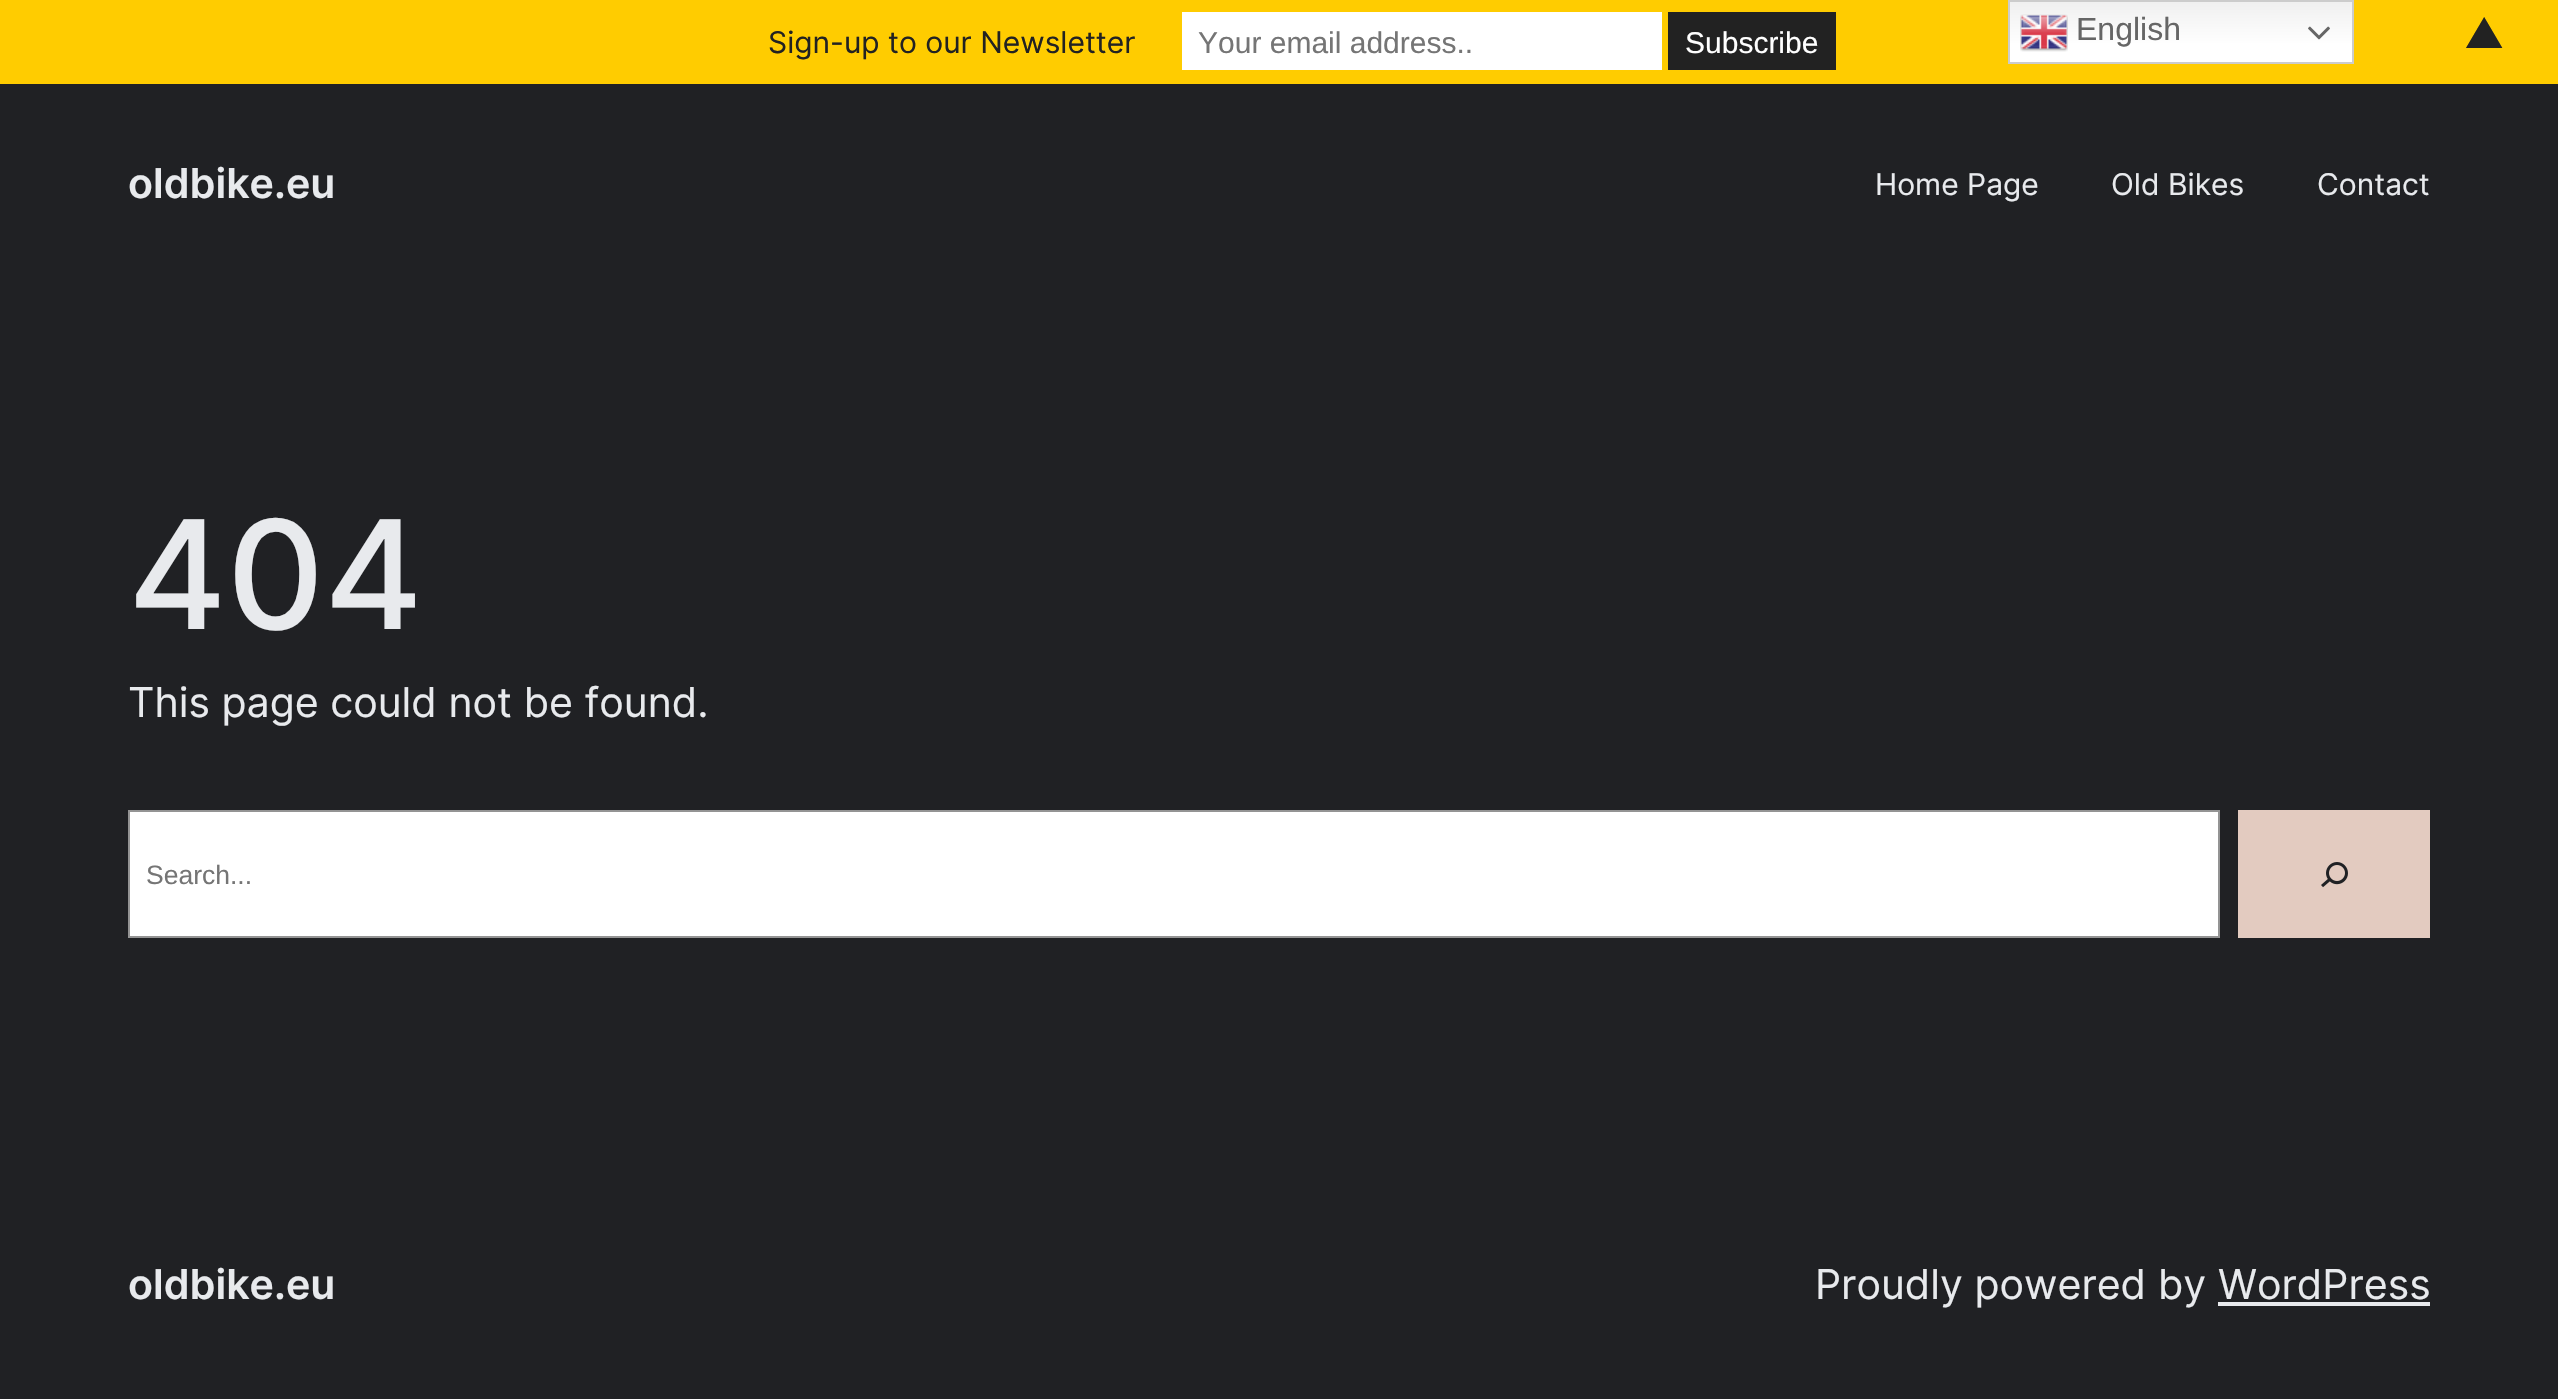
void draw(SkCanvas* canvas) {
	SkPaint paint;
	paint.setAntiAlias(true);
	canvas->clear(0xff202124);
	paint.setColor(0xffffcc00);
	canvas->drawRect(SkRect::MakeXYWH(0, 0, 2558, 84), paint);
	{
		const SkColor colors[] = {0xffefefef, 0xffffffff};
		const float stops[] = {0, 0.7};
		const SkPoint ends[] = {{2181, 0}, {2181, 64}};
		paint.setShader(SkGradientShader::MakeLinear(ends, colors, stops, 2, SkTileMode::kClamp));
		paint.setAlpha(255);
	}
	canvas->drawRect(SkRect::MakeXYWH(2010, 2, 342, 60), paint);
	paint.setStroke(true);
	paint.setStrokeWidth(2);
	paint.setShader(nullptr);
	paint.setColor(0xffcccccc);
	canvas->drawRect(SkRect::MakeXYWH(2009, 1, 344, 62), paint);
	canvas->drawImageRect(SkImages::DeferredFromEncodedData(SkData::MakeFromFileName("img1.png")), SkRect::MakeXYWH(2020, 14, 48, 38), SkSamplingOptions());
	SkFont f1(fontMgr->matchFamilyStyle("Liberation Sans", SkFontStyle::Normal()), 32);
	f1.setSubpixel(true);
	paint.setStroke(false);
	paint.setColor(0xff666666);
	canvas->drawString("English", 2076, 40, f1, paint);
	canvas->drawImageRect(SkImages::DeferredFromEncodedData(SkData::MakeFromFileName("img2.png")), SkRect::MakeXYWH(2308, 26, 22, 14), SkSamplingOptions());
	SkFont f2(fontMgr->matchFamilyStyle("Inter", SkFontStyle::Normal()), 30);
	f2.setSubpixel(true);
	paint.setColor(0xff222222);
	canvas->drawString("Sign-up to our Newsletter", 768, 53, f2, paint);
	paint.setColor(0xffffffff);
	canvas->drawRect(SkRect::MakeXYWH(1182, 12, 480, 58), paint);
	SkFont f3(fontMgr->matchFamilyStyle("Liberation Sans", SkFontStyle::Normal()), 30);
	f3.setSubpixel(true);
	paint.setColor(0xff757575);
	canvas->drawString("Your email address..", 1198, 53, f3, paint);
	paint.setColor(0xff222222);
	canvas->drawRect(SkRect::MakeXYWH(1668, 12, 168, 58), paint);
	paint.setColor(0xffffffff);
	canvas->drawString("Subscribe", 1685, 53, f3, paint);
	SkFont f4(fontMgr->matchFamilyStyle("Inter", SkFontStyle::Normal()), 40);
	f4.setSubpixel(true);
	paint.setColor(0xff222222);
	canvas->drawString("▲", 2464, 48, f4, paint);
	SkFont f5(fontMgr->matchFamilyStyle("Inter", SkFontStyle(600, SkFontStyle::kNormal_Width, SkFontStyle::kUpright_Slant)), 41.1);
	f5.setSubpixel(true);
	paint.setColor(0xffe8eaed);
	canvas->drawString("oldbike.eu", 128, 198, f5, paint);
	canvas->drawString("Home Page", 1875, 195, f2, paint);
	canvas->drawString("Old Bikes", 2111, 195, f2, paint);
	canvas->drawString("Contact", 2317, 195, f2, paint);
	SkFont f6(fontMgr->matchFamilyStyle("Inter", SkFontStyle(500, SkFontStyle::kNormal_Width, SkFontStyle::kUpright_Slant)), 151);
	f6.setSubpixel(true);
	canvas->drawString("404", 128, 629, f6, paint);
	SkFont f7(fontMgr->matchFamilyStyle("Inter", SkFontStyle::Normal()), 41.1);
	f7.setSubpixel(true);
	canvas->drawString("This page could not be found.", 128, 717, f7, paint);
	paint.setColor(0xffffffff);
	canvas->drawRect(SkRect::MakeXYWH(129, 811, 2090, 126), paint);
	paint.setStroke(true);
	paint.setColor(0xff949494);
	canvas->drawRect(SkRect::MakeXYWH(129, 811, 2090, 126), paint);
	SkFont f8(fontMgr->matchFamilyStyle("Liberation Sans", SkFontStyle::Normal()), 26.5);
	f8.setSubpixel(true);
	paint.setStroke(false);
	paint.setColor(0xff757575);
	canvas->drawString("Search...", 146, 884, f8, paint);
	paint.setColor(0xffe3cbc0);
	canvas->drawRect(SkRect::MakeXYWH(2238, 810, 192, 128), paint);
	canvas->drawImageRect(SkImages::DeferredFromEncodedData(SkData::MakeFromFileName("img3.png")), SkRect::MakeXYWH(2321, 862, 27, 26), SkSamplingOptions());
	paint.setColor(0xffe8eaed);
	canvas->drawString("oldbike.eu", 128, 1299, f5, paint);
	canvas->drawString("Proudly powered by", 1815, 1299, f7, paint);
	canvas->drawString("WordPress", 2218, 1299, f7, paint);
	canvas->drawRect(SkRect::MakeXYWH(2218, 1302, 212, 4), paint);
}
